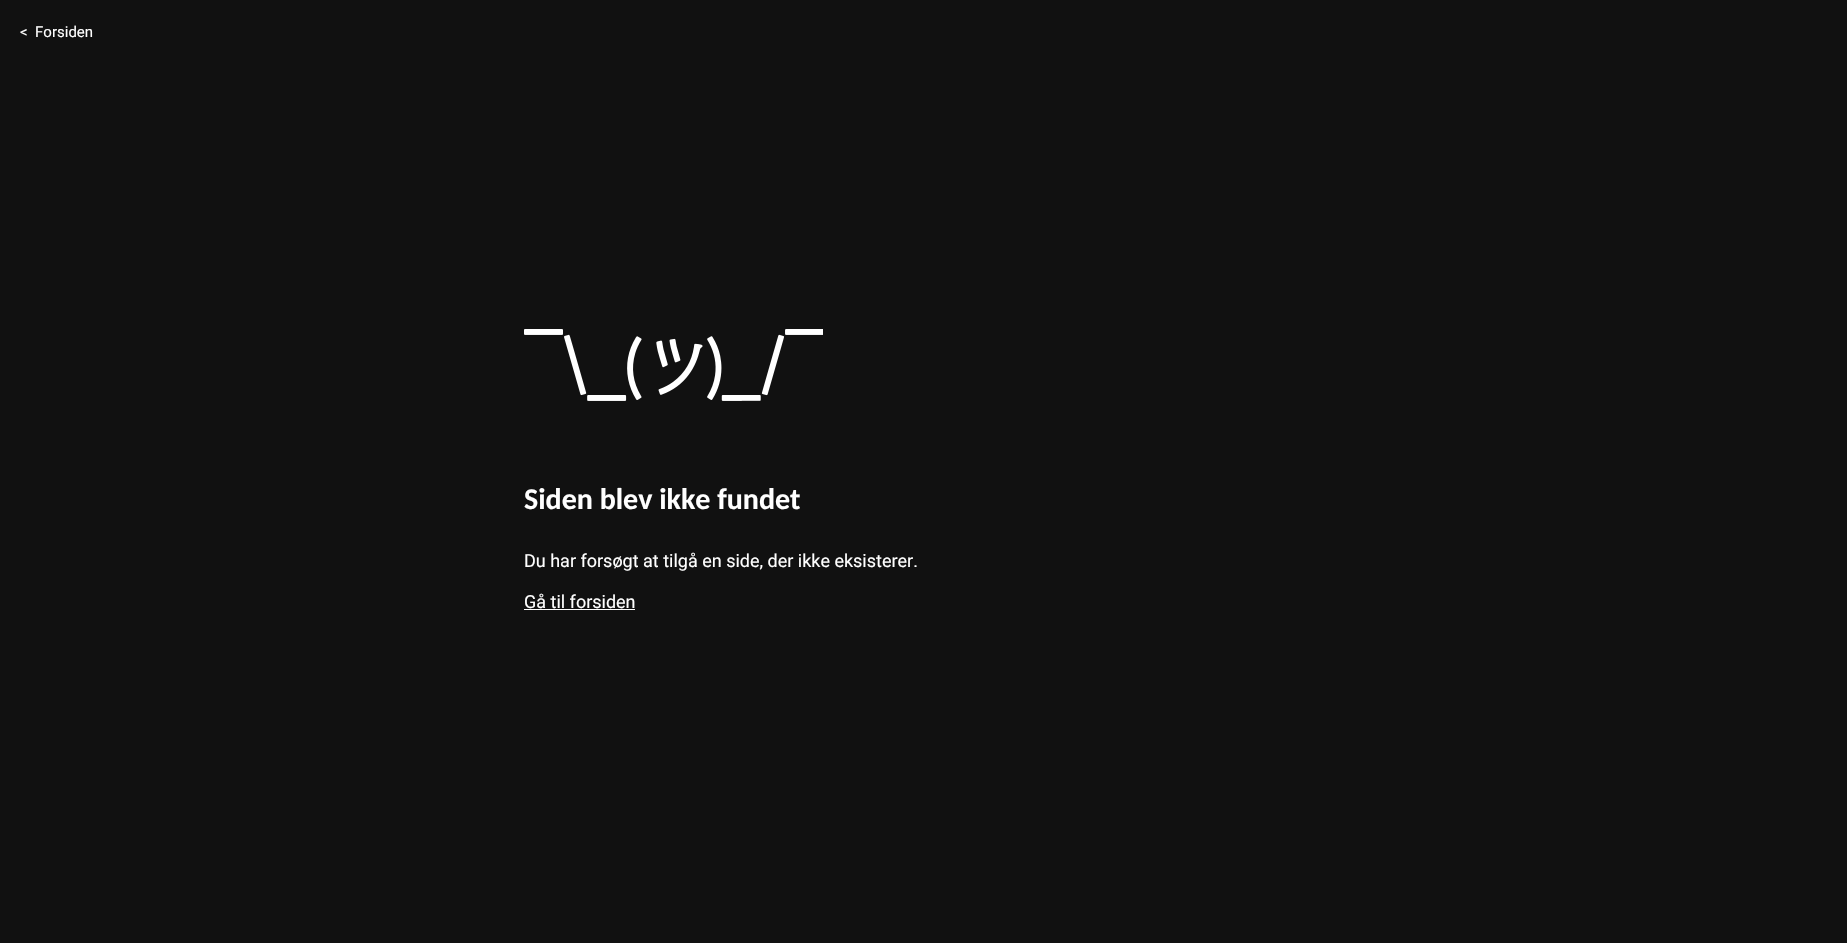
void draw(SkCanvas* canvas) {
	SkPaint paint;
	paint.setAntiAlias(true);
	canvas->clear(0xff111111);
	SkFont f1(fontMgr->matchFamilyStyle("Roboto", SkFontStyle::Normal()), 15);
	f1.setSubpixel(true);
	paint.setColor(0xffffffff);
	canvas->drawString("<  Forsiden", 20, 37, f1, paint);
	canvas->drawImageRect(SkImages::DeferredFromEncodedData(SkData::MakeFromFileName("img1.png")), SkRect::MakeXYWH(524, 329, 299, 72), SkSamplingOptions());
	SkFont f2(fontMgr->matchFamilyStyle("Carlito", SkFontStyle::Bold()), 30);
	f2.setSubpixel(true);
	canvas->drawString("Siden blev ikke fundet", 524, 509, f2, paint);
	SkFont f3(fontMgr->matchFamilyStyle("Roboto", SkFontStyle::Normal()), 18);
	f3.setSubpixel(true);
	canvas->drawString("Du har forsøgt at tilgå en side, der ikke eksisterer.", 524, 567, f3, paint);
	canvas->drawString("Gå til forsiden", 524, 608, f3, paint);
	canvas->drawRect(SkRect::MakeXYWH(524, 609, 111, 1), paint);
}
